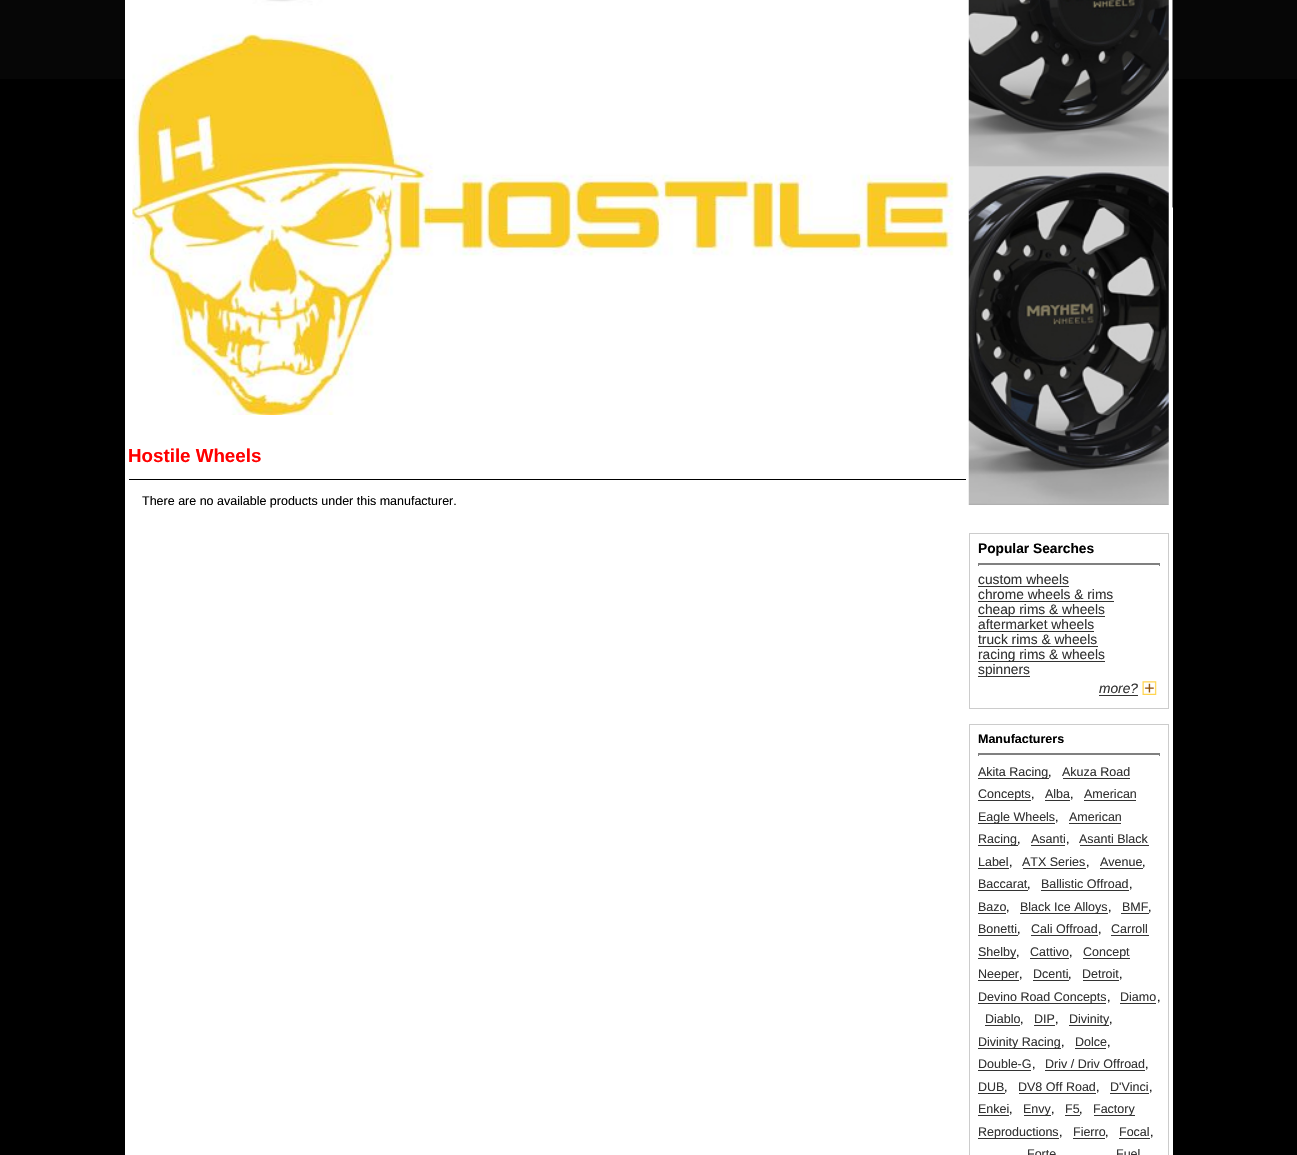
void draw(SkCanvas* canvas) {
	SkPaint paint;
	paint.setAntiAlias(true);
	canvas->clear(0xff000000);
	paint.setColor(0xff060606);
	canvas->drawRect(SkRect::MakeXYWH(0, 0, 1297, 79), paint);
	paint.setColor(0xffffffff);
	canvas->drawRect(SkRect::MakeXYWH(125, 0, 1048, 1155), paint);
	canvas->drawImageRect(SkImages::DeferredFromEncodedData(SkData::MakeFromFileName("img1.png")), SkRect::MakeXYWH(1172, 0, 1, 208), SkSamplingOptions());
	canvas->drawImageRect(SkImages::DeferredFromEncodedData(SkData::MakeFromFileName("img2.png")), SkRect::MakeXYWH(132, 0, 822, 415), SkSamplingOptions());
	SkFont f1(fontMgr->matchFamilyStyle("Liberation Sans", SkFontStyle::Bold()), 18.75);
	f1.setSubpixel(true);
	paint.setColor(0xffff0000);
	canvas->drawString("Hostile Wheels", 128, 462, f1, paint);
	paint.setColor(0xff000000);
	canvas->drawRect(SkRect::MakeXYWH(129, 479, 837, 1), paint);
	SkFont f2(fontMgr->matchFamilyStyle("Liberation Sans", SkFontStyle::Normal()), 12.5);
	f2.setSubpixel(true);
	canvas->drawString("There are no available products under this manufacturer.", 142, 505, f2, paint);
	canvas->drawImageRect(SkImages::DeferredFromEncodedData(SkData::MakeFromFileName("img3.png")), SkRect::MakeXYWH(968, 0, 201, 505), SkSamplingOptions());
	paint.setColor(0xffcccccc);
	canvas->drawRect(SkRect::MakeXYWH(969, 533, 200, 176), paint);
	paint.setColor(0xffffffff);
	canvas->drawRect(SkRect::MakeXYWH(970, 534, 198, 174), paint);
	SkFont f3(fontMgr->matchFamilyStyle("Liberation Sans", SkFontStyle::Bold()), 13.75);
	f3.setSubpixel(true);
	paint.setColor(0xff000000);
	canvas->drawString("Popular Searches", 978, 553, f3, paint);
	paint.setColor(0xff808080);
	canvas->drawRect(SkRect::MakeXYWH(979, 564, 180, 1), paint);
	canvas->drawRect(SkRect::MakeXYWH(978, 563, 182, 1), paint);
	canvas->drawRect(SkRect::MakeXYWH(1159, 563, 1, 3), paint);
	canvas->drawRect(SkRect::MakeXYWH(978, 563, 1, 3), paint);
	SkFont f4(fontMgr->matchFamilyStyle("Liberation Sans", SkFontStyle::Normal()), 13.75);
	f4.setSubpixel(true);
	paint.setColor(0xff333333);
	canvas->drawString("custom wheels", 978, 584, f4, paint);
	canvas->drawRect(SkRect::MakeXYWH(978, 586, 91, 1), paint);
	canvas->drawString("chrome wheels & rims", 978, 599, f4, paint);
	canvas->drawRect(SkRect::MakeXYWH(978, 601, 136, 1), paint);
	canvas->drawRect(SkRect::MakeXYWH(978, 616, 127, 1), paint);
	canvas->drawString("cheap rims & wheels", 978, 614, f4, paint);
	canvas->drawString("aftermarket wheels", 978, 629, f4, paint);
	canvas->drawRect(SkRect::MakeXYWH(978, 631, 116, 1), paint);
	canvas->drawString("truck rims & wheels", 978, 644, f4, paint);
	canvas->drawRect(SkRect::MakeXYWH(978, 646, 120, 1), paint);
	canvas->drawRect(SkRect::MakeXYWH(978, 661, 127, 1), paint);
	canvas->drawString("racing rims & wheels", 978, 659, f4, paint);
	canvas->drawRect(SkRect::MakeXYWH(978, 676, 52, 1), paint);
	canvas->drawString("spinners", 978, 674, f4, paint);
	SkFont f5(fontMgr->matchFamilyStyle("Liberation Sans", SkFontStyle::Italic()), 13.75);
	f5.setSubpixel(true);
	canvas->drawString("more?", 1099, 693, f5, paint);
	canvas->drawRect(SkRect::MakeXYWH(1099, 695, 39, 1), paint);
	canvas->drawImageRect(SkImages::DeferredFromEncodedData(SkData::MakeFromFileName("img4.png")), SkRect::MakeXYWH(1142, 681, 15, 14), SkSamplingOptions());
	paint.setColor(0xffcccccc);
	canvas->drawRect(SkRect::MakeXYWH(969, 724, 200, 431), paint);
	paint.setColor(0xffffffff);
	canvas->drawRect(SkRect::MakeXYWH(970, 725, 198, 430), paint);
	SkFont f6(fontMgr->matchFamilyStyle("Liberation Sans", SkFontStyle::Bold()), 12.5);
	f6.setSubpixel(true);
	paint.setColor(0xff000000);
	canvas->drawString("Manufacturers", 978, 743, f6, paint);
	paint.setColor(0xff808080);
	canvas->drawRect(SkRect::MakeXYWH(979, 754, 180, 1), paint);
	canvas->drawRect(SkRect::MakeXYWH(978, 753, 182, 1), paint);
	canvas->drawRect(SkRect::MakeXYWH(1159, 753, 1, 3), paint);
	canvas->drawRect(SkRect::MakeXYWH(978, 753, 1, 3), paint);
	paint.setColor(0xff333333);
	canvas->drawRect(SkRect::MakeXYWH(978, 778, 71, 1), paint);
	canvas->drawString("Akita Racing", 978, 776, f2, paint);
	paint.setColor(0xff000000);
	canvas->drawString(",", 1048, 776, f2, paint);
	paint.setColor(0xff333333);
	canvas->drawString("Akuza Road", 1062, 776, f2, paint);
	canvas->drawRect(SkRect::MakeXYWH(1063, 778, 67, 1), paint);
	canvas->drawRect(SkRect::MakeXYWH(978, 800, 53, 1), paint);
	canvas->drawString("Concepts", 978, 798, f2, paint);
	paint.setColor(0xff000000);
	canvas->drawString(",", 1031, 798, f2, paint);
	paint.setColor(0xff333333);
	canvas->drawString("Alba", 1045, 798, f2, paint);
	canvas->drawRect(SkRect::MakeXYWH(1045, 800, 25, 1), paint);
	paint.setColor(0xff000000);
	canvas->drawString(",", 1070, 798, f2, paint);
	paint.setColor(0xff333333);
	canvas->drawString("American", 1084, 798, f2, paint);
	canvas->drawRect(SkRect::MakeXYWH(1084, 800, 52, 1), paint);
	canvas->drawRect(SkRect::MakeXYWH(978, 823, 77, 1), paint);
	canvas->drawString("Eagle Wheels", 978, 821, f2, paint);
	paint.setColor(0xff000000);
	canvas->drawString(",", 1055, 821, f2, paint);
	paint.setColor(0xff333333);
	canvas->drawString("American", 1069, 821, f2, paint);
	canvas->drawRect(SkRect::MakeXYWH(1069, 823, 52, 1), paint);
	canvas->drawRect(SkRect::MakeXYWH(978, 845, 40, 1), paint);
	canvas->drawString("Racing", 978, 843, f2, paint);
	paint.setColor(0xff000000);
	canvas->drawString(",", 1017, 843, f2, paint);
	paint.setColor(0xff333333);
	canvas->drawString("Asanti", 1031, 843, f2, paint);
	canvas->drawRect(SkRect::MakeXYWH(1031, 845, 34, 1), paint);
	paint.setColor(0xff000000);
	canvas->drawString(",", 1066, 843, f2, paint);
	paint.setColor(0xff333333);
	canvas->drawString("Asanti Black", 1079, 843, f2, paint);
	canvas->drawRect(SkRect::MakeXYWH(1080, 845, 69, 1), paint);
	canvas->drawString("Label", 978, 866, f2, paint);
	canvas->drawRect(SkRect::MakeXYWH(978, 868, 31, 1), paint);
	paint.setColor(0xff000000);
	canvas->drawString(",", 1009, 866, f2, paint);
	paint.setColor(0xff333333);
	canvas->drawString("ATX Series", 1022, 866, f2, paint);
	canvas->drawRect(SkRect::MakeXYWH(1023, 868, 63, 1), paint);
	paint.setColor(0xff000000);
	canvas->drawString(",", 1086, 866, f2, paint);
	paint.setColor(0xff333333);
	canvas->drawString("Avenue", 1100, 866, f2, paint);
	canvas->drawRect(SkRect::MakeXYWH(1100, 868, 43, 1), paint);
	paint.setColor(0xff000000);
	canvas->drawString(",", 1142, 866, f2, paint);
	paint.setColor(0xff333333);
	canvas->drawString("Baccarat", 978, 888, f2, paint);
	canvas->drawRect(SkRect::MakeXYWH(978, 890, 50, 1), paint);
	paint.setColor(0xff000000);
	canvas->drawString(",", 1027, 888, f2, paint);
	paint.setColor(0xff333333);
	canvas->drawString("Ballistic Offroad", 1041, 888, f2, paint);
	canvas->drawRect(SkRect::MakeXYWH(1041, 890, 88, 1), paint);
	paint.setColor(0xff000000);
	canvas->drawString(",", 1129, 888, f2, paint);
	paint.setColor(0xff333333);
	canvas->drawString("Bazo", 978, 911, f2, paint);
	canvas->drawRect(SkRect::MakeXYWH(978, 913, 28, 1), paint);
	paint.setColor(0xff000000);
	canvas->drawString(",", 1006, 911, f2, paint);
	paint.setColor(0xff333333);
	canvas->drawRect(SkRect::MakeXYWH(1020, 913, 88, 1), paint);
	canvas->drawString("Black Ice Alloys", 1020, 911, f2, paint);
	paint.setColor(0xff000000);
	canvas->drawString(",", 1108, 911, f2, paint);
	paint.setColor(0xff333333);
	canvas->drawString("BMF", 1122, 911, f2, paint);
	canvas->drawRect(SkRect::MakeXYWH(1121, 913, 28, 1), paint);
	paint.setColor(0xff000000);
	canvas->drawString(",", 1148, 911, f2, paint);
	paint.setColor(0xff333333);
	canvas->drawString("Bonetti", 978, 933, f2, paint);
	canvas->drawRect(SkRect::MakeXYWH(978, 935, 40, 1), paint);
	paint.setColor(0xff000000);
	canvas->drawString(",", 1017, 933, f2, paint);
	paint.setColor(0xff333333);
	canvas->drawString("Cali Offroad", 1031, 933, f2, paint);
	canvas->drawRect(SkRect::MakeXYWH(1031, 935, 67, 1), paint);
	paint.setColor(0xff000000);
	canvas->drawString(",", 1098, 933, f2, paint);
	paint.setColor(0xff333333);
	canvas->drawString("Carroll", 1111, 933, f2, paint);
	canvas->drawRect(SkRect::MakeXYWH(1111, 935, 38, 1), paint);
	canvas->drawRect(SkRect::MakeXYWH(978, 958, 38, 1), paint);
	canvas->drawString("Shelby", 978, 956, f2, paint);
	paint.setColor(0xff000000);
	canvas->drawString(",", 1016, 956, f2, paint);
	paint.setColor(0xff333333);
	canvas->drawString("Cattivo", 1030, 956, f2, paint);
	canvas->drawRect(SkRect::MakeXYWH(1030, 958, 39, 1), paint);
	paint.setColor(0xff000000);
	canvas->drawString(",", 1069, 956, f2, paint);
	paint.setColor(0xff333333);
	canvas->drawRect(SkRect::MakeXYWH(1083, 958, 47, 1), paint);
	canvas->drawString("Concept", 1083, 956, f2, paint);
	canvas->drawRect(SkRect::MakeXYWH(978, 980, 41, 1), paint);
	canvas->drawString("Neeper", 978, 978, f2, paint);
	paint.setColor(0xff000000);
	canvas->drawString(",", 1019, 978, f2, paint);
	paint.setColor(0xff333333);
	canvas->drawString("Dcenti", 1033, 978, f2, paint);
	canvas->drawRect(SkRect::MakeXYWH(1033, 980, 36, 1), paint);
	paint.setColor(0xff000000);
	canvas->drawString(",", 1068, 978, f2, paint);
	paint.setColor(0xff333333);
	canvas->drawString("Detroit", 1082, 978, f2, paint);
	canvas->drawRect(SkRect::MakeXYWH(1083, 980, 36, 1), paint);
	paint.setColor(0xff000000);
	canvas->drawString(",", 1119, 978, f2, paint);
	paint.setColor(0xff333333);
	canvas->drawRect(SkRect::MakeXYWH(978, 1003, 128, 1), paint);
	canvas->drawString("Devino Road Concepts", 978, 1001, f2, paint);
	paint.setColor(0xff000000);
	canvas->drawString(",", 1107, 1001, f2, paint);
	paint.setColor(0xff333333);
	canvas->drawString("Diamo", 1120, 1001, f2, paint);
	canvas->drawRect(SkRect::MakeXYWH(1120, 1003, 36, 1), paint);
	paint.setColor(0xff000000);
	canvas->drawString(",", 1157, 1001, f2, paint);
	paint.setColor(0xff333333);
	canvas->drawString("Diablo", 985, 1023, f2, paint);
	canvas->drawRect(SkRect::MakeXYWH(985, 1025, 35, 1), paint);
	paint.setColor(0xff000000);
	canvas->drawString(",", 1020, 1023, f2, paint);
	paint.setColor(0xff333333);
	canvas->drawString("DIP", 1034, 1023, f2, paint);
	canvas->drawRect(SkRect::MakeXYWH(1034, 1025, 21, 1), paint);
	paint.setColor(0xff000000);
	canvas->drawString(",", 1055, 1023, f2, paint);
	paint.setColor(0xff333333);
	canvas->drawRect(SkRect::MakeXYWH(1069, 1025, 40, 1), paint);
	canvas->drawString("Divinity", 1069, 1023, f2, paint);
	paint.setColor(0xff000000);
	canvas->drawString(",", 1109, 1023, f2, paint);
	paint.setColor(0xff333333);
	canvas->drawRect(SkRect::MakeXYWH(978, 1048, 83, 1), paint);
	canvas->drawString("Divinity Racing", 978, 1046, f2, paint);
	paint.setColor(0xff000000);
	canvas->drawString(",", 1061, 1046, f2, paint);
	paint.setColor(0xff333333);
	canvas->drawString("Dolce", 1075, 1046, f2, paint);
	canvas->drawRect(SkRect::MakeXYWH(1075, 1048, 31, 1), paint);
	paint.setColor(0xff000000);
	canvas->drawString(",", 1107, 1046, f2, paint);
	paint.setColor(0xff333333);
	canvas->drawString("Double-G", 978, 1068, f2, paint);
	canvas->drawRect(SkRect::MakeXYWH(978, 1070, 53, 1), paint);
	paint.setColor(0xff000000);
	canvas->drawString(",", 1032, 1068, f2, paint);
	paint.setColor(0xff333333);
	canvas->drawString("Driv / Driv Offroad", 1045, 1068, f2, paint);
	canvas->drawRect(SkRect::MakeXYWH(1045, 1070, 100, 1), paint);
	paint.setColor(0xff000000);
	canvas->drawString(",", 1145, 1068, f2, paint);
	paint.setColor(0xff333333);
	canvas->drawString("DUB", 978, 1091, f2, paint);
	canvas->drawRect(SkRect::MakeXYWH(978, 1093, 27, 1), paint);
	paint.setColor(0xff000000);
	canvas->drawString(",", 1004, 1091, f2, paint);
	paint.setColor(0xff333333);
	canvas->drawString("DV8 Off Road", 1018, 1091, f2, paint);
	canvas->drawRect(SkRect::MakeXYWH(1019, 1093, 77, 1), paint);
	paint.setColor(0xff000000);
	canvas->drawString(",", 1096, 1091, f2, paint);
	paint.setColor(0xff333333);
	canvas->drawString("D'Vinci", 1110, 1091, f2, paint);
	canvas->drawRect(SkRect::MakeXYWH(1110, 1093, 39, 1), paint);
	paint.setColor(0xff000000);
	canvas->drawString(",", 1149, 1091, f2, paint);
	paint.setColor(0xff333333);
	canvas->drawString("Enkei", 978, 1113, f2, paint);
	canvas->drawRect(SkRect::MakeXYWH(978, 1115, 31, 1), paint);
	paint.setColor(0xff000000);
	canvas->drawString(",", 1009, 1113, f2, paint);
	paint.setColor(0xff333333);
	canvas->drawRect(SkRect::MakeXYWH(1024, 1115, 27, 1), paint);
	canvas->drawString("Envy", 1023, 1113, f2, paint);
	paint.setColor(0xff000000);
	canvas->drawString(",", 1051, 1113, f2, paint);
	paint.setColor(0xff333333);
	canvas->drawString("F5", 1065, 1113, f2, paint);
	canvas->drawRect(SkRect::MakeXYWH(1065, 1115, 15, 1), paint);
	paint.setColor(0xff000000);
	canvas->drawString(",", 1079, 1113, f2, paint);
	paint.setColor(0xff333333);
	canvas->drawRect(SkRect::MakeXYWH(1094, 1115, 41, 1), paint);
	canvas->drawString("Factory", 1093, 1113, f2, paint);
	canvas->drawRect(SkRect::MakeXYWH(978, 1138, 81, 1), paint);
	canvas->drawString("Reproductions", 978, 1136, f2, paint);
	paint.setColor(0xff000000);
	canvas->drawString(",", 1059, 1136, f2, paint);
	paint.setColor(0xff333333);
	canvas->drawString("Fierro", 1073, 1136, f2, paint);
	canvas->drawRect(SkRect::MakeXYWH(1073, 1138, 32, 1), paint);
	paint.setColor(0xff000000);
	canvas->drawString(",", 1105, 1136, f2, paint);
	paint.setColor(0xff333333);
	canvas->drawString("Focal", 1119, 1136, f2, paint);
	canvas->drawRect(SkRect::MakeXYWH(1119, 1138, 31, 1), paint);
	paint.setColor(0xff000000);
	canvas->drawString(",", 1150, 1136, f2, paint);
	paint.setColor(0xff333333);
	canvas->drawString("Forte", 1027, 1158, f2, paint);
	canvas->drawString("Fuel", 1116, 1158, f2, paint);
}
